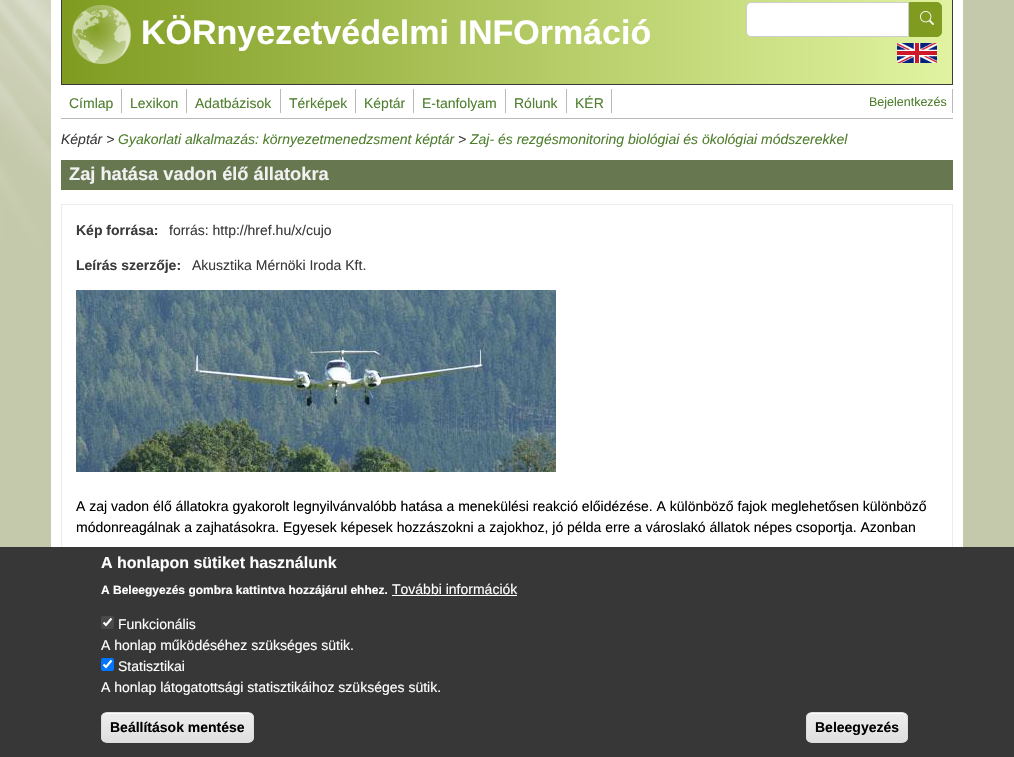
void draw(SkCanvas* canvas) {
	SkPaint paint;
	paint.setAntiAlias(true);
	auto svgPath = [&](const char* data, bool evenOdd = false) {
		SkPath result = *SkParsePath::FromSVGString(data);
		if (evenOdd) result.setFillType(SkPathFillType::kEvenOdd);
		return result;
	};
	canvas->clear(0xffc5c9ab);
	canvas->drawImageRect(SkImages::DeferredFromEncodedData(SkData::MakeFromFileName("img1.png")), SkRect::MakeXYWH(0, 0, 51, 248), SkSamplingOptions());
	paint.setColor(0xffffffff);
	canvas->drawRect(SkRect::MakeXYWH(51, 0, 912, 547), paint);
	{
		const SkColor colors[] = {0xff7f9c21, 0xffe1f3a0};
		const float stops[] = {0, 1};
		const SkPoint ends[] = {{62, 35}, {952, 35}};
		paint.setShader(SkGradientShader::MakeLinear(ends, colors, stops, 2, SkTileMode::kClamp));
		paint.setAlpha(255);
	}
	canvas->drawRect(SkRect::MakeXYWH(62, 0, 890, 84), paint);
	paint.setStroke(true);
	paint.setStrokeWidth(1);
	paint.setShader(nullptr);
	paint.setColor(0xff3b3b3b);
	canvas->drawRect(SkRect::MakeXYWH(61.5, -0.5, 891, 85), paint);
	canvas->drawImageRect(SkImages::DeferredFromEncodedData(SkData::MakeFromFileName("img2.png")), SkRect::MakeXYWH(72, 5, 59, 59), SkSamplingOptions());
	SkFont f1(fontMgr->matchFamilyStyle("Liberation Sans", SkFontStyle::Bold()), 34);
	f1.setSubpixel(true);
	paint.setStroke(false);
	paint.setColor(0xffffffff);
	canvas->drawString("KÖRnyezetvédelmi INFOrmáció", 141, 44, f1, paint);
	canvas->drawPath(svgPath("M751 2.5H908.5V36.5H751C748.5 36.5 746.5 34.5 746.5 32V7C746.5 4.5 748.5 2.5 751 2.5Z"), paint);
	paint.setStroke(true);
	paint.setColor(0xffcccccc);
	canvas->drawPath(svgPath("M751 2.5H908.5V36.5H751C748.5 36.5 746.5 34.5 746.5 32V7C746.5 4.5 748.5 2.5 751 2.5Z"), paint);
	paint.setStroke(false);
	paint.setColor(0xff7f9c21);
	canvas->drawPath(svgPath("M909.5 2.5H937C939.5 2.5 941.5 4.5 941.5 7V32C941.5 34.5 939.5 36.5 937 36.5H909.5Z"), paint);
	paint.setStroke(true);
	canvas->drawPath(svgPath("M909.5 2.5H937C939.5 2.5 941.5 4.5 941.5 7V32C941.5 34.5 939.5 36.5 937 36.5H909.5Z"), paint);
	canvas->drawImageRect(SkImages::DeferredFromEncodedData(SkData::MakeFromFileName("img3.png")), SkRect::MakeXYWH(920, 11, 14, 14), SkSamplingOptions());
	canvas->drawImageRect(SkImages::DeferredFromEncodedData(SkData::MakeFromFileName("img4.png")), SkRect::MakeXYWH(897, 43, 40, 20), SkSamplingOptions());
	paint.setStroke(false);
	paint.setColor(0xffbababa);
	canvas->drawRect(SkRect::MakeXYWH(61, 118, 892, 1), paint);
	canvas->drawRect(SkRect::MakeXYWH(121, 89, 1, 24), paint);
	SkFont f2(fontMgr->matchFamilyStyle("Liberation Sans", SkFontStyle::Normal()), 14);
	f2.setSubpixel(true);
	paint.setColor(0xff507f2f);
	canvas->drawString("Címlap", 69, 108, f2, paint);
	paint.setColor(0xffbababa);
	canvas->drawRect(SkRect::MakeXYWH(186, 89, 1, 24), paint);
	paint.setColor(0xff507f2f);
	canvas->drawString("Lexikon", 130, 108, f2, paint);
	paint.setColor(0xffbababa);
	canvas->drawRect(SkRect::MakeXYWH(280, 89, 1, 24), paint);
	paint.setColor(0xff507f2f);
	canvas->drawString("Adatbázisok", 195, 108, f2, paint);
	paint.setColor(0xffbababa);
	canvas->drawRect(SkRect::MakeXYWH(355, 89, 1, 24), paint);
	paint.setColor(0xff507f2f);
	canvas->drawString("Térképek", 289, 108, f2, paint);
	paint.setColor(0xffbababa);
	canvas->drawRect(SkRect::MakeXYWH(413, 89, 1, 24), paint);
	paint.setColor(0xff507f2f);
	canvas->drawString("Képtár", 364, 108, f2, paint);
	paint.setColor(0xffbababa);
	canvas->drawRect(SkRect::MakeXYWH(505, 89, 1, 24), paint);
	paint.setColor(0xff507f2f);
	canvas->drawString("E-tanfolyam", 422, 108, f2, paint);
	paint.setColor(0xffbababa);
	canvas->drawRect(SkRect::MakeXYWH(566, 89, 1, 24), paint);
	paint.setColor(0xff507f2f);
	canvas->drawString("Rólunk", 514, 108, f2, paint);
	paint.setColor(0xffbababa);
	canvas->drawRect(SkRect::MakeXYWH(611, 89, 1, 24), paint);
	paint.setColor(0xff507f2f);
	canvas->drawString("KÉR", 575, 108, f2, paint);
	paint.setColor(0xffbababa);
	canvas->drawRect(SkRect::MakeXYWH(952, 89, 1, 24), paint);
	SkFont f3(fontMgr->matchFamilyStyle("Liberation Sans", SkFontStyle::Normal()), 12.5);
	f3.setSubpixel(true);
	paint.setColor(0xff507f2f);
	canvas->drawString("Bejelentkezés", 869, 106, f3, paint);
	SkFont f4(fontMgr->matchFamilyStyle("Liberation Sans", SkFontStyle::Italic()), 14);
	f4.setSubpixel(true);
	paint.setColor(0xff3b3b3b);
	canvas->drawString("Képtár >", 61, 144, f4, paint);
	paint.setColor(0xff507f2f);
	canvas->drawString("Gyakorlati alkalmazás: környezetmenedzsment képtár", 118, 144, f4, paint);
	paint.setColor(0xff3b3b3b);
	canvas->drawString(">", 458, 144, f4, paint);
	paint.setColor(0xff507f2f);
	canvas->drawString("Zaj- és rezgésmonitoring biológiai és ökológiai módszerekkel", 470, 144, f4, paint);
	paint.setColor(0xff677750);
	canvas->drawRect(SkRect::MakeXYWH(61, 160, 892, 30), paint);
	SkFont f5(fontMgr->matchFamilyStyle("Liberation Sans", SkFontStyle::Bold()), 18.25);
	f5.setSubpixel(true);
	paint.setColor(0xfff1f1f1);
	canvas->drawString("Zaj hatása vadon élő állatokra", 69, 180, f5, paint);
	paint.setStroke(true);
	paint.setColor(0xffececec);
	canvas->drawRect(SkRect::MakeXYWH(61.5, 204.5, 891, 512), paint);
	SkFont f6(fontMgr->matchFamilyStyle("Liberation Sans", SkFontStyle::Bold()), 14);
	f6.setSubpixel(true);
	paint.setStroke(false);
	paint.setColor(0xff3b3b3b);
	canvas->drawString("Kép forrása:", 76, 235, f6, paint);
	canvas->drawString("forrás: http://href.hu/x/cujo", 169, 235, f2, paint);
	canvas->drawString("Leírás szerzője:", 76, 270, f6, paint);
	canvas->drawString("Akusztika Mérnöki Iroda Kft.", 192, 270, f2, paint);
	canvas->drawImageRect(SkImages::DeferredFromEncodedData(SkData::MakeFromFileName("img5.png")), SkRect::MakeXYWH(76, 290, 480, 182), SkSamplingOptions());
	paint.setColor(0xff000000);
	canvas->drawString("A zaj vadon élő állatokra gyakorolt legnyilvánvalóbb hatása a menekülési reakció előidézése. A különböző fajok meglehetősen különböző", 76, 511, f2, paint);
	canvas->drawString("módonreagálnak a zajhatásokra. Egyesek képesek hozzászokni a zajokhoz, jó példa erre a városlakó állatok népes csoportja. Azonban", 76, 532, f2, paint);
	paint.setColor(0xff373737);
	canvas->drawRect(SkRect::MakeXYWH(0, 547, 1014, 210), paint);
	SkFont f7(fontMgr->matchFamilyStyle("Liberation Sans", SkFontStyle::Bold()), 16);
	f7.setSubpixel(true);
	paint.setColor(0xffffffff);
	canvas->drawString("A honlapon sütiket használunk", 101, 568, f7, paint);
	SkFont f8(fontMgr->matchFamilyStyle("Liberation Sans", SkFontStyle::Bold()), 12);
	f8.setSubpixel(true);
	canvas->drawString("A Beleegyezés gombra kattintva hozzájárul ehhez.", 101, 594, f8, paint);
	canvas->drawString("További információk", 392, 594, f2, paint);
	canvas->drawRect(SkRect::MakeXYWH(392, 595, 125, 1), paint);
	paint.setColor(0xff4a4a4a);
	canvas->drawRoundRect(SkRect::MakeXYWH(101, 616, 13, 13), 2, 2, paint);
	paint.setStroke(true);
	paint.setStrokeWidth(2.1);
	paint.setColor(0xffffffff);
	canvas->drawPath(svgPath("M103.5 622.5L106 625L111.5 618.5"), paint);
	paint.setStroke(false);
	canvas->drawString("Funkcionális", 118, 629, f2, paint);
	canvas->drawString("A honlap működéséhez szükséges sütik.", 101, 650, f2, paint);
	paint.setColor(0xff0075ff);
	canvas->drawRoundRect(SkRect::MakeXYWH(101, 658, 13, 13), 2, 2, paint);
	paint.setStroke(true);
	paint.setColor(0xffffffff);
	canvas->drawPath(svgPath("M103.5 664.5L106 667L111.5 660.5"), paint);
	paint.setStroke(false);
	canvas->drawString("Statisztikai", 118, 671, f2, paint);
	canvas->drawString("A honlap látogatottsági statisztikáihoz szükséges sütik.", 101, 692, f2, paint);
	canvas->save();
	canvas->clipPath(svgPath("M107 712H248C251.5 712 254 714.5 254 718V737C254 740.5 251.5 743 248 743H107C103.5 743 101 740.5 101 737V718C101 714.5 103.5 712 107 712Z"), true);
	{
		const SkColor colors[] = {0xffededed, 0xffdfdfdf};
		const float stops[] = {0.05, 1};
		const SkPoint ends[] = {{178, 713}, {178, 742}};
		paint.setShader(SkGradientShader::MakeLinear(ends, colors, stops, 2, SkTileMode::kClamp));
		paint.setAlpha(255);
	}
	canvas->drawRect(SkRect::MakeXYWH(101, 713, 153, 29), paint);
	canvas->restore();
	paint.setShader(nullptr);
	paint.setColor(0xffffffff);
	canvas->drawPath(svgPath("M107 714H248C251 714 253 716 253 719V718C253 715 251 713 248 713H107C104 713 102 715 102 718V719C102 716 104 714 107 714Z"), paint);
	paint.setStroke(true);
	paint.setStrokeWidth(1);
	paint.setColor(0xffdcdcdc);
	canvas->drawRoundRect(SkRect::MakeXYWH(101.5, 712.5, 152, 30), 5.5, 5.5, paint);
	paint.setStroke(false);
	paint.setColor(0xff000000);
	canvas->drawString("Beállítások mentése", 110, 732, f6, paint);
	canvas->save();
	canvas->clipPath(svgPath("M812 712H902C905.5 712 908 714.5 908 718V737C908 740.5 905.5 743 902 743H812C808.5 743 806 740.5 806 737V718C806 714.5 808.5 712 812 712Z"), true);
	{
		const SkColor colors[] = {0xffededed, 0xffdfdfdf};
		const float stops[] = {0.05, 1};
		const SkPoint ends[] = {{857, 713}, {857, 742}};
		paint.setShader(SkGradientShader::MakeLinear(ends, colors, stops, 2, SkTileMode::kClamp));
		paint.setAlpha(255);
	}
	canvas->drawRect(SkRect::MakeXYWH(806, 713, 102, 29), paint);
	canvas->restore();
	paint.setShader(nullptr);
	paint.setColor(0xffffffff);
	canvas->drawPath(svgPath("M812 714H902C905 714 907 716 907 719C907 709 892 713 887 713H827C822 713 807 709 807 719C807 716 809 714 812 714Z"), paint);
	paint.setStroke(true);
	paint.setColor(0xffdcdcdc);
	canvas->drawRoundRect(SkRect::MakeXYWH(806.5, 712.5, 101, 30), 5.5, 5.5, paint);
	paint.setStroke(false);
	paint.setColor(0xff000000);
	canvas->drawString("Beleegyezés", 815, 732, f6, paint);
}
